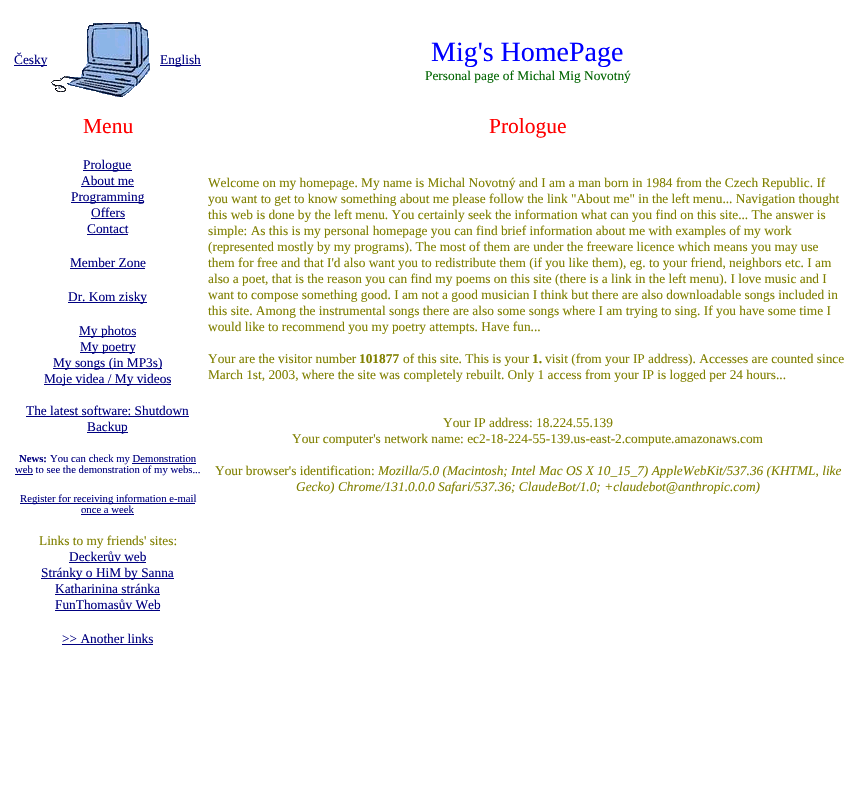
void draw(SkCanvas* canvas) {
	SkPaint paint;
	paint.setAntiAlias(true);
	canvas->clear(0xffffffff);
	paint.setColor(0xff000080);
	canvas->drawRect(SkRect::MakeXYWH(14, 65, 33, 1), paint);
	SkFont f1(fontMgr->matchFamilyStyle("Liberation Serif", SkFontStyle::Normal()), 13.35);
	f1.setSubpixel(true);
	canvas->drawString("Česky", 14, 64, f1, paint);
	canvas->drawImageRect(SkImages::DeferredFromEncodedData(SkData::MakeFromFileName("img1.png")), SkRect::MakeXYWH(51, 22, 99, 75), SkSamplingOptions());
	canvas->drawRect(SkRect::MakeXYWH(160, 65, 41, 1), paint);
	canvas->drawString("English", 160, 64, f1, paint);
	SkFont f2(fontMgr->matchFamilyStyle("Liberation Serif", SkFontStyle::Normal()), 28);
	f2.setSubpixel(true);
	paint.setColor(0xff0000ff);
	canvas->drawString("Mig's HomePage", 431, 61, f2, paint);
	paint.setColor(0xff006400);
	canvas->drawString("Personal page of Michal Mig Novotný", 425, 80, f1, paint);
	SkFont f3(fontMgr->matchFamilyStyle("Liberation Serif", SkFontStyle::Normal()), 21.5);
	f3.setSubpixel(true);
	paint.setColor(0xffff0000);
	canvas->drawString("Menu", 83, 133, f3, paint);
	paint.setColor(0xff000080);
	canvas->drawRect(SkRect::MakeXYWH(83, 170, 49, 1), paint);
	canvas->drawString("Prologue", 83, 169, f1, paint);
	canvas->drawString("About me", 81, 185, f1, paint);
	canvas->drawRect(SkRect::MakeXYWH(81, 186, 53, 1), paint);
	canvas->drawRect(SkRect::MakeXYWH(71, 202, 73, 1), paint);
	canvas->drawString("Programming", 71, 201, f1, paint);
	canvas->drawString("Offers", 91, 217, f1, paint);
	canvas->drawRect(SkRect::MakeXYWH(91, 218, 34, 1), paint);
	canvas->drawString("Contact", 87, 233, f1, paint);
	canvas->drawRect(SkRect::MakeXYWH(87, 234, 41, 1), paint);
	canvas->drawString("Member Zone", 70, 267, f1, paint);
	canvas->drawRect(SkRect::MakeXYWH(70, 268, 75, 1), paint);
	canvas->drawRect(SkRect::MakeXYWH(68, 302, 79, 1), paint);
	canvas->drawString("Dr. Kom zisky", 68, 301, f1, paint);
	canvas->drawRect(SkRect::MakeXYWH(79, 336, 57, 1), paint);
	canvas->drawString("My photos", 79, 335, f1, paint);
	canvas->drawRect(SkRect::MakeXYWH(80, 352, 55, 1), paint);
	canvas->drawString("My poetry", 80, 351, f1, paint);
	canvas->drawRect(SkRect::MakeXYWH(53, 368, 109, 1), paint);
	canvas->drawString("My songs (in MP3s)", 53, 367, f1, paint);
	canvas->drawRect(SkRect::MakeXYWH(44, 384, 127, 1), paint);
	canvas->drawString("Moje videa / My videos", 44, 383, f1, paint);
	canvas->drawString("The latest software: Shutdown", 26, 415, f1, paint);
	canvas->drawRect(SkRect::MakeXYWH(26, 416, 163, 1), paint);
	canvas->drawRect(SkRect::MakeXYWH(87, 432, 41, 1), paint);
	canvas->drawString("Backup", 87, 431, f1, paint);
	SkFont f4(fontMgr->matchFamilyStyle("Liberation Serif", SkFontStyle::Bold()), 10.7);
	f4.setSubpixel(true);
	canvas->drawString("News:", 19, 462, f4, paint);
	SkFont f5(fontMgr->matchFamilyStyle("Liberation Serif", SkFontStyle::Normal()), 10.7);
	f5.setSubpixel(true);
	canvas->drawString("You can check my Demonstration", 50, 462, f5, paint);
	canvas->drawRect(SkRect::MakeXYWH(15, 474, 18, 1), paint);
	canvas->drawString("web to see the demonstration of my webs...", 15, 473, f5, paint);
	canvas->drawRect(SkRect::MakeXYWH(132, 463, 64, 1), paint);
	canvas->drawRect(SkRect::MakeXYWH(20, 503, 175, 1), paint);
	canvas->drawString("Register for receiving information e-mail", 20, 502, f5, paint);
	canvas->drawString("once a week", 81, 513, f5, paint);
	canvas->drawRect(SkRect::MakeXYWH(81, 514, 53, 1), paint);
	paint.setColor(0xff808000);
	canvas->drawString("Links to my friends' sites:", 39, 545, f1, paint);
	paint.setColor(0xff000080);
	canvas->drawString("Deckerův web", 69, 561, f1, paint);
	canvas->drawRect(SkRect::MakeXYWH(69, 562, 77, 1), paint);
	canvas->drawRect(SkRect::MakeXYWH(41, 578, 133, 1), paint);
	canvas->drawString("Stránky o HiM by Sanna", 41, 577, f1, paint);
	canvas->drawString("Katharinina stránka", 55, 593, f1, paint);
	canvas->drawRect(SkRect::MakeXYWH(55, 594, 105, 1), paint);
	canvas->drawString("FunThomasův Web", 55, 609, f1, paint);
	canvas->drawRect(SkRect::MakeXYWH(55, 610, 105, 1), paint);
	canvas->drawString(">> Another links", 62, 643, f1, paint);
	canvas->drawRect(SkRect::MakeXYWH(62, 644, 91, 1), paint);
	paint.setColor(0xffff0000);
	canvas->drawString("Prologue", 489, 133, f3, paint);
	paint.setColor(0xff808000);
	canvas->drawString("Welcome on my homepage. My name is Michal Novotný and I am a man born in 1984 from the Czech Republic. If", 208, 187, f1, paint);
	canvas->drawString("you want to get to know something about me please follow the link \"About me\" in the left menu... Navigation thought", 208, 203, f1, paint);
	canvas->drawString("this web is done by the left menu. You certainly seek the information what can you find on this site... The answer is", 208, 219, f1, paint);
	canvas->drawString("simple: As this is my personal homepage you can find brief information about me with examples of my work", 208, 235, f1, paint);
	canvas->drawString("(represented mostly by my programs). The most of them are under the freeware licence which means you may use", 208, 251, f1, paint);
	canvas->drawString("them for free and that I'd also want you to redistribute them (if you like them), eg. to your friend, neighbors etc. I am", 208, 267, f1, paint);
	canvas->drawString("also a poet, that is the reason you can find my poems on this site (there is a link in the left menu). I love music and I", 208, 283, f1, paint);
	canvas->drawString("want to compose something good. I am not a good musician I think but there are also downloadable songs included in", 208, 299, f1, paint);
	canvas->drawString("this site. Among the instrumental songs there are also some songs where I am trying to sing. If you have some time I", 208, 315, f1, paint);
	canvas->drawString("would like to recommend you my poetry attempts. Have fun...", 208, 331, f1, paint);
	canvas->drawString("Your are the visitor number", 208, 363, f1, paint);
	SkFont f6(fontMgr->matchFamilyStyle("Liberation Serif", SkFontStyle::Bold()), 13.35);
	f6.setSubpixel(true);
	canvas->drawString("101877", 359, 363, f6, paint);
	canvas->drawString("of this site. This is your", 403, 363, f1, paint);
	canvas->drawString("1.", 532, 363, f6, paint);
	canvas->drawString("visit (from your IP address). Accesses are counted since", 545, 363, f1, paint);
	canvas->drawString("March 1st, 2003, where the site was completely rebuilt. Only 1 access from your IP is logged per 24 hours...", 208, 379, f1, paint);
	canvas->drawString("Your IP address: 18.224.55.139", 443, 427, f1, paint);
	canvas->drawString("Your computer's network name: ec2-18-224-55-139.us-east-2.compute.amazonaws.com", 292, 443, f1, paint);
	canvas->drawString("Your browser's identification:", 215, 475, f1, paint);
	SkFont f7(fontMgr->matchFamilyStyle("Liberation Serif", SkFontStyle::Italic()), 13.35);
	f7.setSubpixel(true);
	canvas->drawString("Mozilla/5.0 (Macintosh; Intel Mac OS X 10_15_7) AppleWebKit/537.36 (KHTML, like", 378, 475, f7, paint);
	canvas->drawString("Gecko) Chrome/131.0.0.0 Safari/537.36; ClaudeBot/1.0; +claudebot@anthropic.com)", 296, 491, f7, paint);
}
